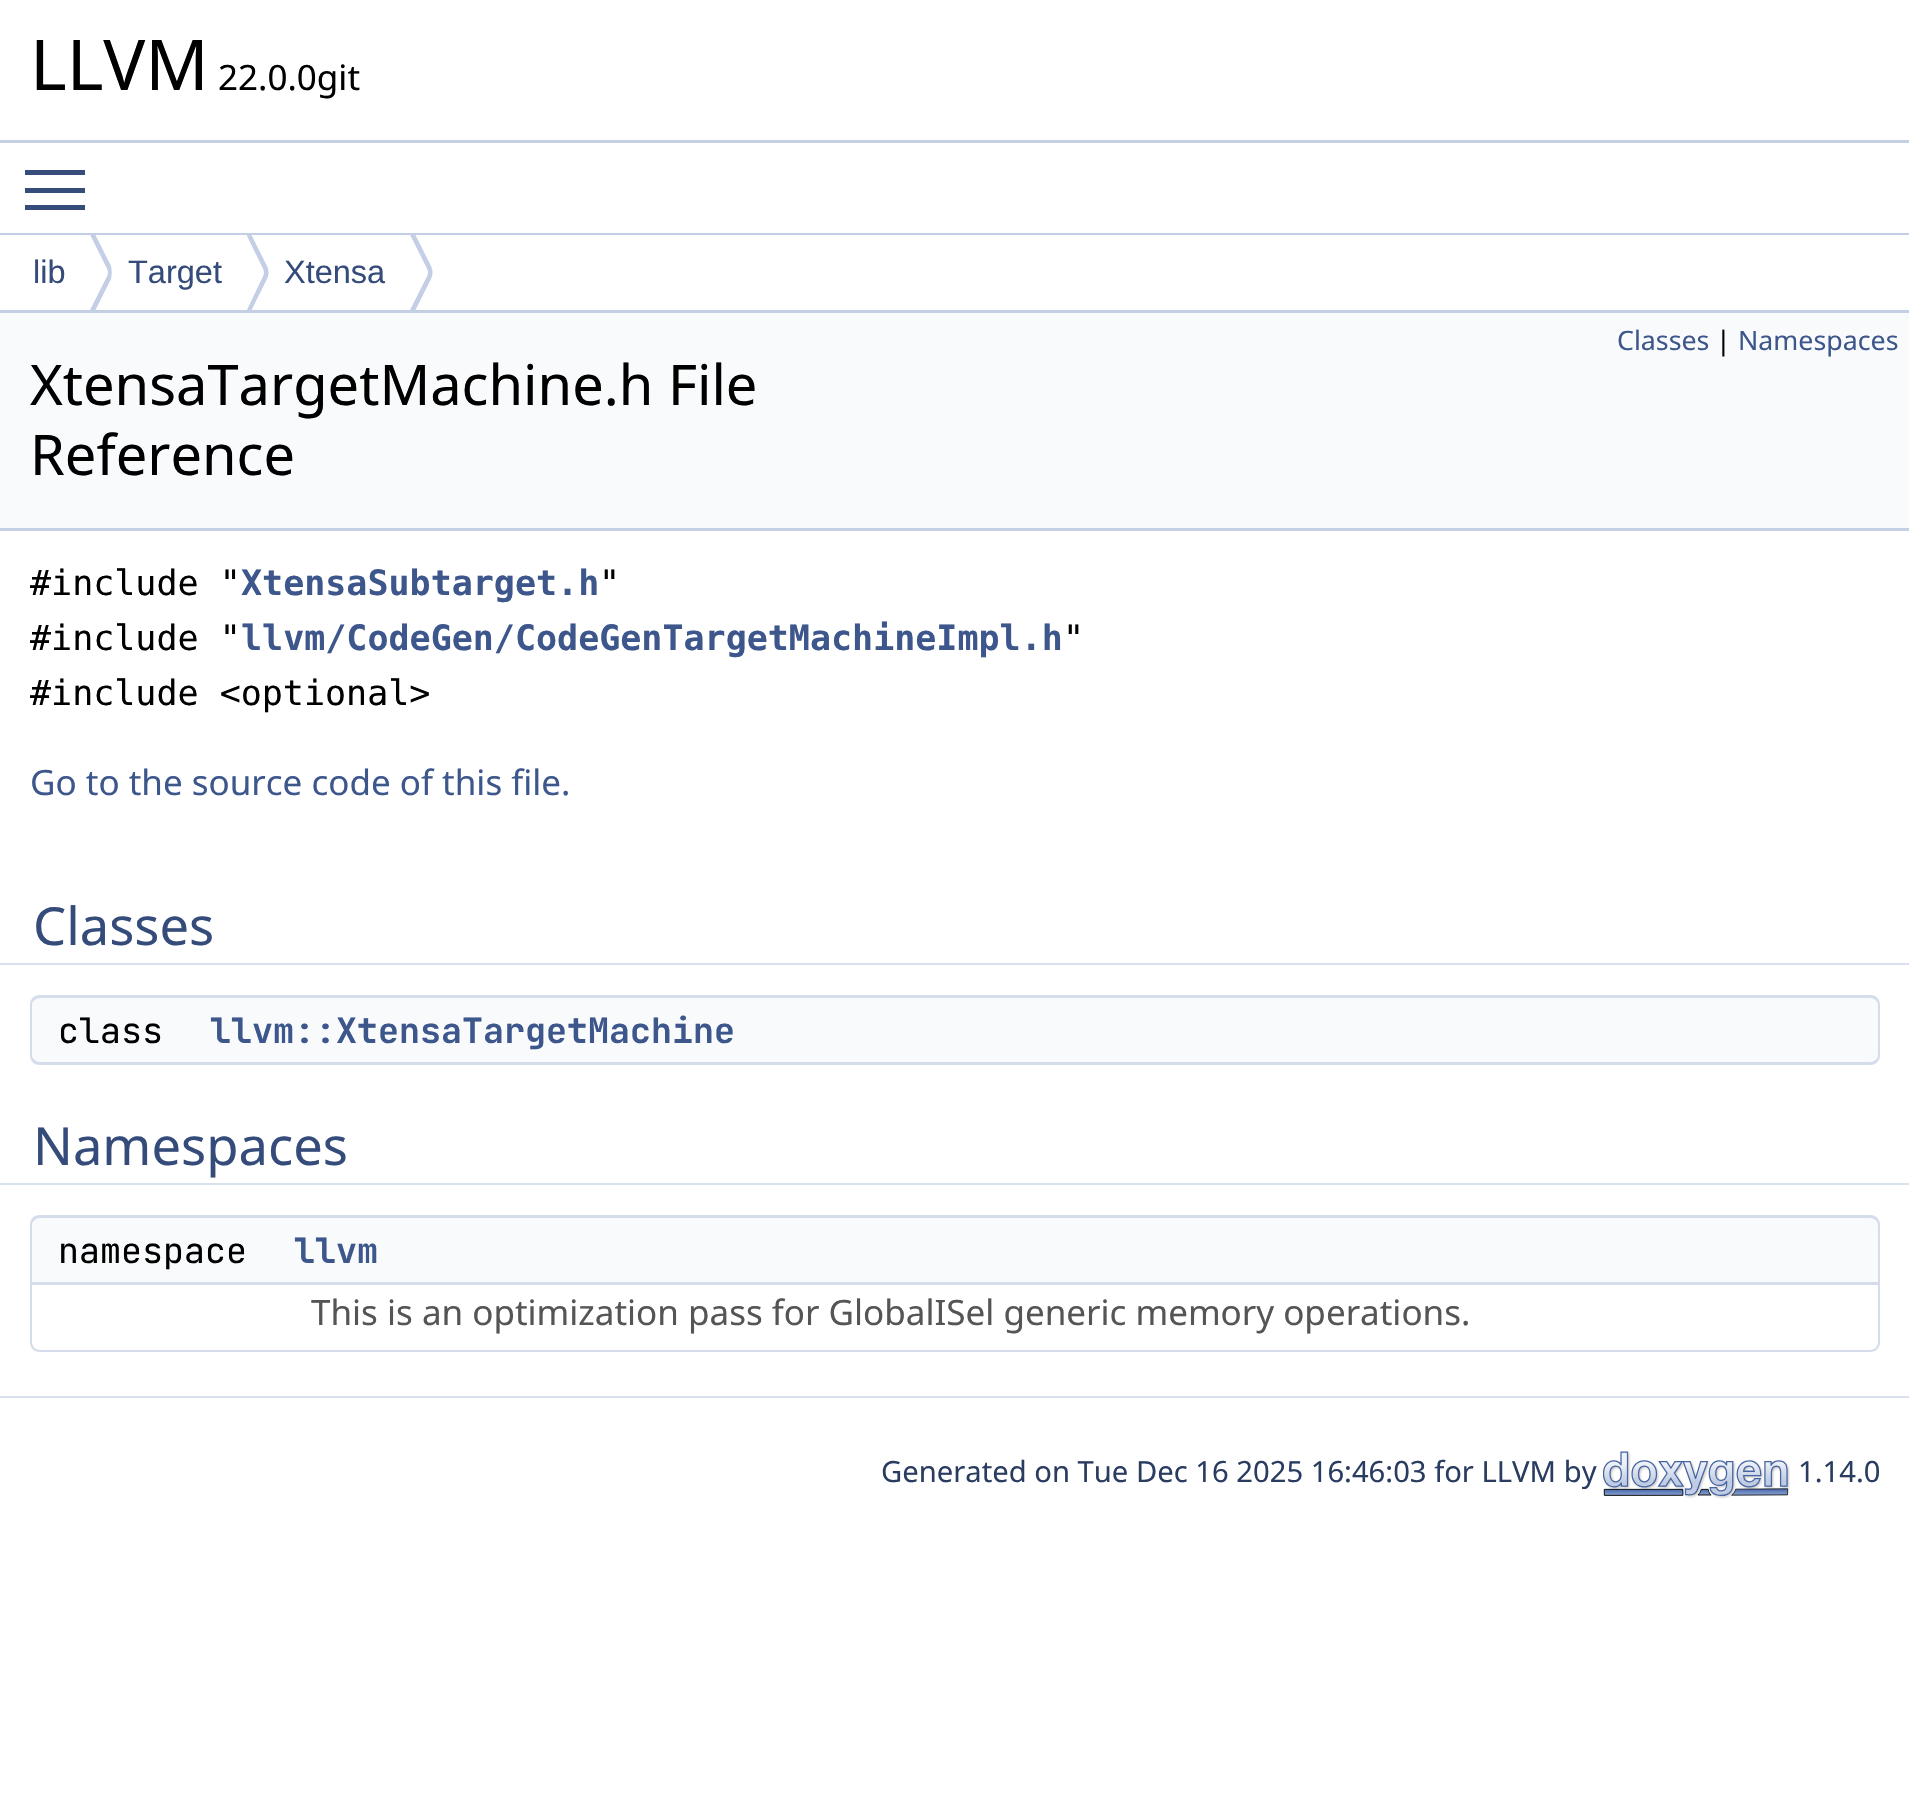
void draw(SkCanvas* canvas) {
	SkPaint paint;
	paint.setAntiAlias(true);
	auto svgPath = [&](const char* data, bool evenOdd = false) {
		SkPath result = *SkParsePath::FromSVGString(data);
		if (evenOdd) result.setFillType(SkPathFillType::kEvenOdd);
		return result;
	};
	canvas->clear(0xffffffff);
	paint.setColor(0xffc4cfe5);
	canvas->drawRect(SkRect::MakeXYWH(0, 140, 1909, 3), paint);
	SkFont f1(fontMgr->matchFamilyStyle("Noto Sans", SkFontStyle::Normal()), 70);
	f1.setSubpixel(true);
	paint.setColor(0xff000000);
	canvas->drawString("LLVM", 30, 90, f1, paint);
	SkFont f2(fontMgr->matchFamilyStyle("Noto Sans", SkFontStyle::Normal()), 35);
	f2.setSubpixel(true);
	canvas->drawString("22.0.0git", 218, 90, f2, paint);
	paint.setColor(0xff364d7c);
	canvas->drawRect(SkRect::MakeXYWH(25, 188, 60, 5), paint);
	canvas->drawRect(SkRect::MakeXYWH(25, 170, 60, 5), paint);
	canvas->drawRect(SkRect::MakeXYWH(25, 205, 60, 5), paint);
	paint.setColor(0xffc4cfe5);
	canvas->drawRect(SkRect::MakeXYWH(0, 233, 1909, 2), paint);
	canvas->drawRect(SkRect::MakeXYWH(0, 310, 1909, 3), paint);
	SkFont f3(fontMgr->matchFamilyStyle("Liberation Sans", SkFontStyle::Normal()), 32.5);
	f3.setSubpixel(true);
	paint.setColor(0xff354c7b);
	canvas->drawString("lib", 33, 283, f3, paint);
	canvas->save();
	canvas->clipRect(SkRect::MakeXYWH(0, 235, 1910, 75));
	paint.setColor(0xffc4cfe5);
	canvas->drawPath(svgPath("M93 230L90 235L107 269C108 271 108 274 107 276L90 309L93 315L111 279C112 275 112 270 111 266Z"), paint);
	canvas->restore();
	paint.setColor(0xffffffff);
	canvas->drawPath(svgPath("M90 235L107 269C108 271 108 274 107 276L90 310C80 289 80 256 90 235Z"), paint);
	paint.setColor(0xff354c7b);
	canvas->drawString("Target", 128, 283, f3, paint);
	canvas->save();
	canvas->clipRect(SkRect::MakeXYWH(0, 235, 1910, 75));
	paint.setColor(0xffc4cfe5);
	canvas->drawPath(svgPath("M249 230L247 236L263 269C264 271 264 274 263 276L247 310L249 315L267 279C269 275 269 270 267 266Z"), paint);
	canvas->restore();
	paint.setColor(0xffffffff);
	canvas->drawPath(svgPath("M246 235L263 269C264 271 264 274 263 276L246 310C236 289 236 256 246 235Z"), paint);
	paint.setColor(0xff354c7b);
	canvas->drawString("Xtensa", 284, 283, f3, paint);
	canvas->save();
	canvas->clipRect(SkRect::MakeXYWH(0, 235, 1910, 75));
	paint.setColor(0xffc4cfe5);
	canvas->drawPath(svgPath("M413 230C411 233 409 236 408 240L410 235L427 269C428 271 428 274 427 276L410 309L413 315L431 279C433 275 433 270 431 266Z"), paint);
	canvas->restore();
	paint.setColor(0xffffffff);
	canvas->drawPath(svgPath("M410 235L427 269C428 271 428 274 427 276L410 310C400 289 400 256 410 235Z"), paint);
	paint.setColor(0xfff9fafc);
	canvas->drawRect(SkRect::MakeXYWH(0, 313, 1909, 215), paint);
	paint.setColor(0xffc4cfe5);
	canvas->drawRect(SkRect::MakeXYWH(0, 528, 1909, 3), paint);
	SkFont f4(fontMgr->matchFamilyStyle("Noto Sans", SkFontStyle::Normal()), 26.75);
	f4.setSubpixel(true);
	paint.setColor(0xff3d578c);
	canvas->drawString("Classes", 1617, 350, f4, paint);
	paint.setColor(0xff000000);
	canvas->drawString("|", 1716, 350, f4, paint);
	paint.setColor(0xff3d578c);
	canvas->drawString("Namespaces", 1738, 350, f4, paint);
	SkFont f5(fontMgr->matchFamilyStyle("Noto Sans", SkFontStyle::Normal()), 56);
	f5.setSubpixel(true);
	paint.setColor(0xff000000);
	canvas->drawString("XtensaTargetMachine.h File", 30, 405, f5, paint);
	canvas->drawString("Reference", 30, 475, f5, paint);
	SkFont f6(fontMgr->matchFamilyStyle("DejaVu Sans Mono", SkFontStyle::Normal()), 35);
	f6.setSubpixel(true);
	canvas->drawString("#include \"", 30, 595, f6, paint);
	SkFont f7(fontMgr->matchFamilyStyle("DejaVu Sans Mono", SkFontStyle::Bold()), 35);
	f7.setSubpixel(true);
	paint.setColor(0xff3d578c);
	canvas->drawString("XtensaSubtarget.h", 241, 595, f7, paint);
	paint.setColor(0xff000000);
	canvas->drawString("\"", 599, 595, f6, paint);
	canvas->drawString("#include \"", 30, 650, f6, paint);
	paint.setColor(0xff3d578c);
	canvas->drawString("llvm/CodeGen/CodeGenTargetMachineImpl.h", 241, 650, f7, paint);
	paint.setColor(0xff000000);
	canvas->drawString("\"", 1063, 650, f6, paint);
	canvas->drawString("#include <optional>", 30, 705, f6, paint);
	paint.setColor(0xff3d578c);
	canvas->drawString("Go to the source code of this file.", 30, 795, f2, paint);
	paint.setColor(0xffd9e0ee);
	canvas->drawPath(svgPath("M0 880V965H1845V962H32V880Z"), paint);
	canvas->drawPath(svgPath("M65 962V965H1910V880H1878V962Z"), paint);
	paint.setColor(0xffffffff);
	canvas->drawPath(svgPath("M0 878V963H1845V962H32V878Z"), paint);
	canvas->drawPath(svgPath("M65 962V963H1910V878H1878V962Z"), paint);
	SkFont f8(fontMgr->matchFamilyStyle("Noto Sans", SkFontStyle::Normal()), 52.5);
	f8.setSubpixel(true);
	paint.setColor(0xff354c7b);
	canvas->drawString("Classes", 33, 945, f8, paint);
	paint.setColor(0xfff9fafc);
	canvas->drawPath(svgPath("M40 995H208V1065H40C34.5 1065 30 1060.5 30 1055V1005C30 999.5 34.5 995 40 995Z"), paint);
	paint.setColor(0xffd5ddec);
	canvas->drawPath(svgPath("M40 995H208V1065H40C34 1065 30 1061 30 1055V1005C30 999 34 995 40 995ZM40 998H208V1062H40C36 1062 32 1059 32 1055V1005C32 1001 36 998 40 998Z", true), paint);
	SkFont f9(fontMgr->matchFamilyStyle("JetBrains Mono", SkFontStyle::Normal()), 35);
	f9.setSubpixel(true);
	paint.setColor(0xff000000);
	canvas->drawString("class", 58, 1043, f9, paint);
	paint.setColor(0xfff9fafc);
	canvas->drawPath(svgPath("M208 995H1870C1875.5 995 1880 999.5 1880 1005V1055C1880 1060.5 1875.5 1065 1870 1065H208Z"), paint);
	paint.setColor(0xffd5ddec);
	canvas->drawPath(svgPath("M208 995H1870C1876 995 1880 999 1880 1005V1055C1880 1061 1876 1065 1870 1065H208ZM208 998H1870C1874 998 1878 1001 1878 1005V1055C1878 1059 1874 1062 1870 1062H208Z", true), paint);
	SkFont f10(fontMgr->matchFamilyStyle("JetBrains Mono", SkFontStyle::Bold()), 35);
	f10.setSubpixel(true);
	paint.setColor(0xff3d578c);
	canvas->drawString("llvm::XtensaTargetMachine", 210, 1043, f10, paint);
	paint.setColor(0xffd9e0ee);
	canvas->drawPath(svgPath("M0 1100V1185H1845V1182H32V1100Z"), paint);
	canvas->drawPath(svgPath("M65 1182V1185H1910V1100H1878V1182Z"), paint);
	paint.setColor(0xffffffff);
	canvas->drawPath(svgPath("M0 1098V1183H1845V1182H32V1098Z"), paint);
	canvas->drawPath(svgPath("M65 1182V1183H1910V1098H1878V1182Z"), paint);
	paint.setColor(0xff354c7b);
	canvas->drawString("Namespaces", 33, 1165, f8, paint);
	paint.setColor(0xfff9fafc);
	canvas->drawPath(svgPath("M40 1215H290V1285H30V1225C30 1219.5 34.5 1215 40 1215Z"), paint);
	paint.setColor(0xffd5ddec);
	canvas->drawPath(svgPath("M40 1215H290V1285H30V1225C30 1219 34 1215 40 1215ZM40 1218H290V1282H32V1225C32 1221 36 1218 40 1218Z", true), paint);
	paint.setColor(0xff000000);
	canvas->drawString("namespace", 58, 1263, f9, paint);
	paint.setColor(0xfff9fafc);
	canvas->drawPath(svgPath("M290 1215H1870C1875.5 1215 1880 1219.5 1880 1225V1285H290Z"), paint);
	paint.setColor(0xffd5ddec);
	canvas->drawPath(svgPath("M290 1215H1870C1876 1215 1880 1219 1880 1225V1285H290ZM290 1218H1870C1874 1218 1878 1221 1878 1225V1282H290Z", true), paint);
	paint.setColor(0xff3d578c);
	canvas->drawString("llvm", 294, 1263, f10, paint);
	paint.setColor(0xffd5ddec);
	canvas->drawPath(svgPath("M30 1285H290V1352H40C34 1352 30 1348 30 1342ZM32 1285H290V1350H40C36 1350 32 1347 32 1342Z", true), paint);
	canvas->drawPath(svgPath("M290 1285H1880V1342C1880 1348 1876 1352 1870 1352H290ZM290 1285H1878V1342C1878 1347 1874 1350 1870 1350H290Z", true), paint);
	paint.setColor(0xff555555);
	canvas->drawString("This is an optimization pass for GlobalISel generic memory operations.", 311, 1325, f2, paint);
	paint.setColor(0xffd9e0ee);
	canvas->drawRect(SkRect::MakeXYWH(0, 1396, 1909, 2), paint);
	SkFont f11(fontMgr->matchFamilyStyle("Noto Sans", SkFontStyle::Normal()), 29.2);
	f11.setSubpixel(true);
	paint.setColor(0xff2a3d61);
	canvas->drawString("Generated on Tue Dec 16 2025 16:46:03 for LLVM by", 881, 1482, f11, paint);
	canvas->drawImageRect(SkImages::DeferredFromEncodedData(SkData::MakeFromFileName("img1.png")), SkRect::MakeXYWH(1603, 1451, 187, 48), SkSamplingOptions());
	canvas->drawString("1.14.0", 1798, 1482, f11, paint);
}
